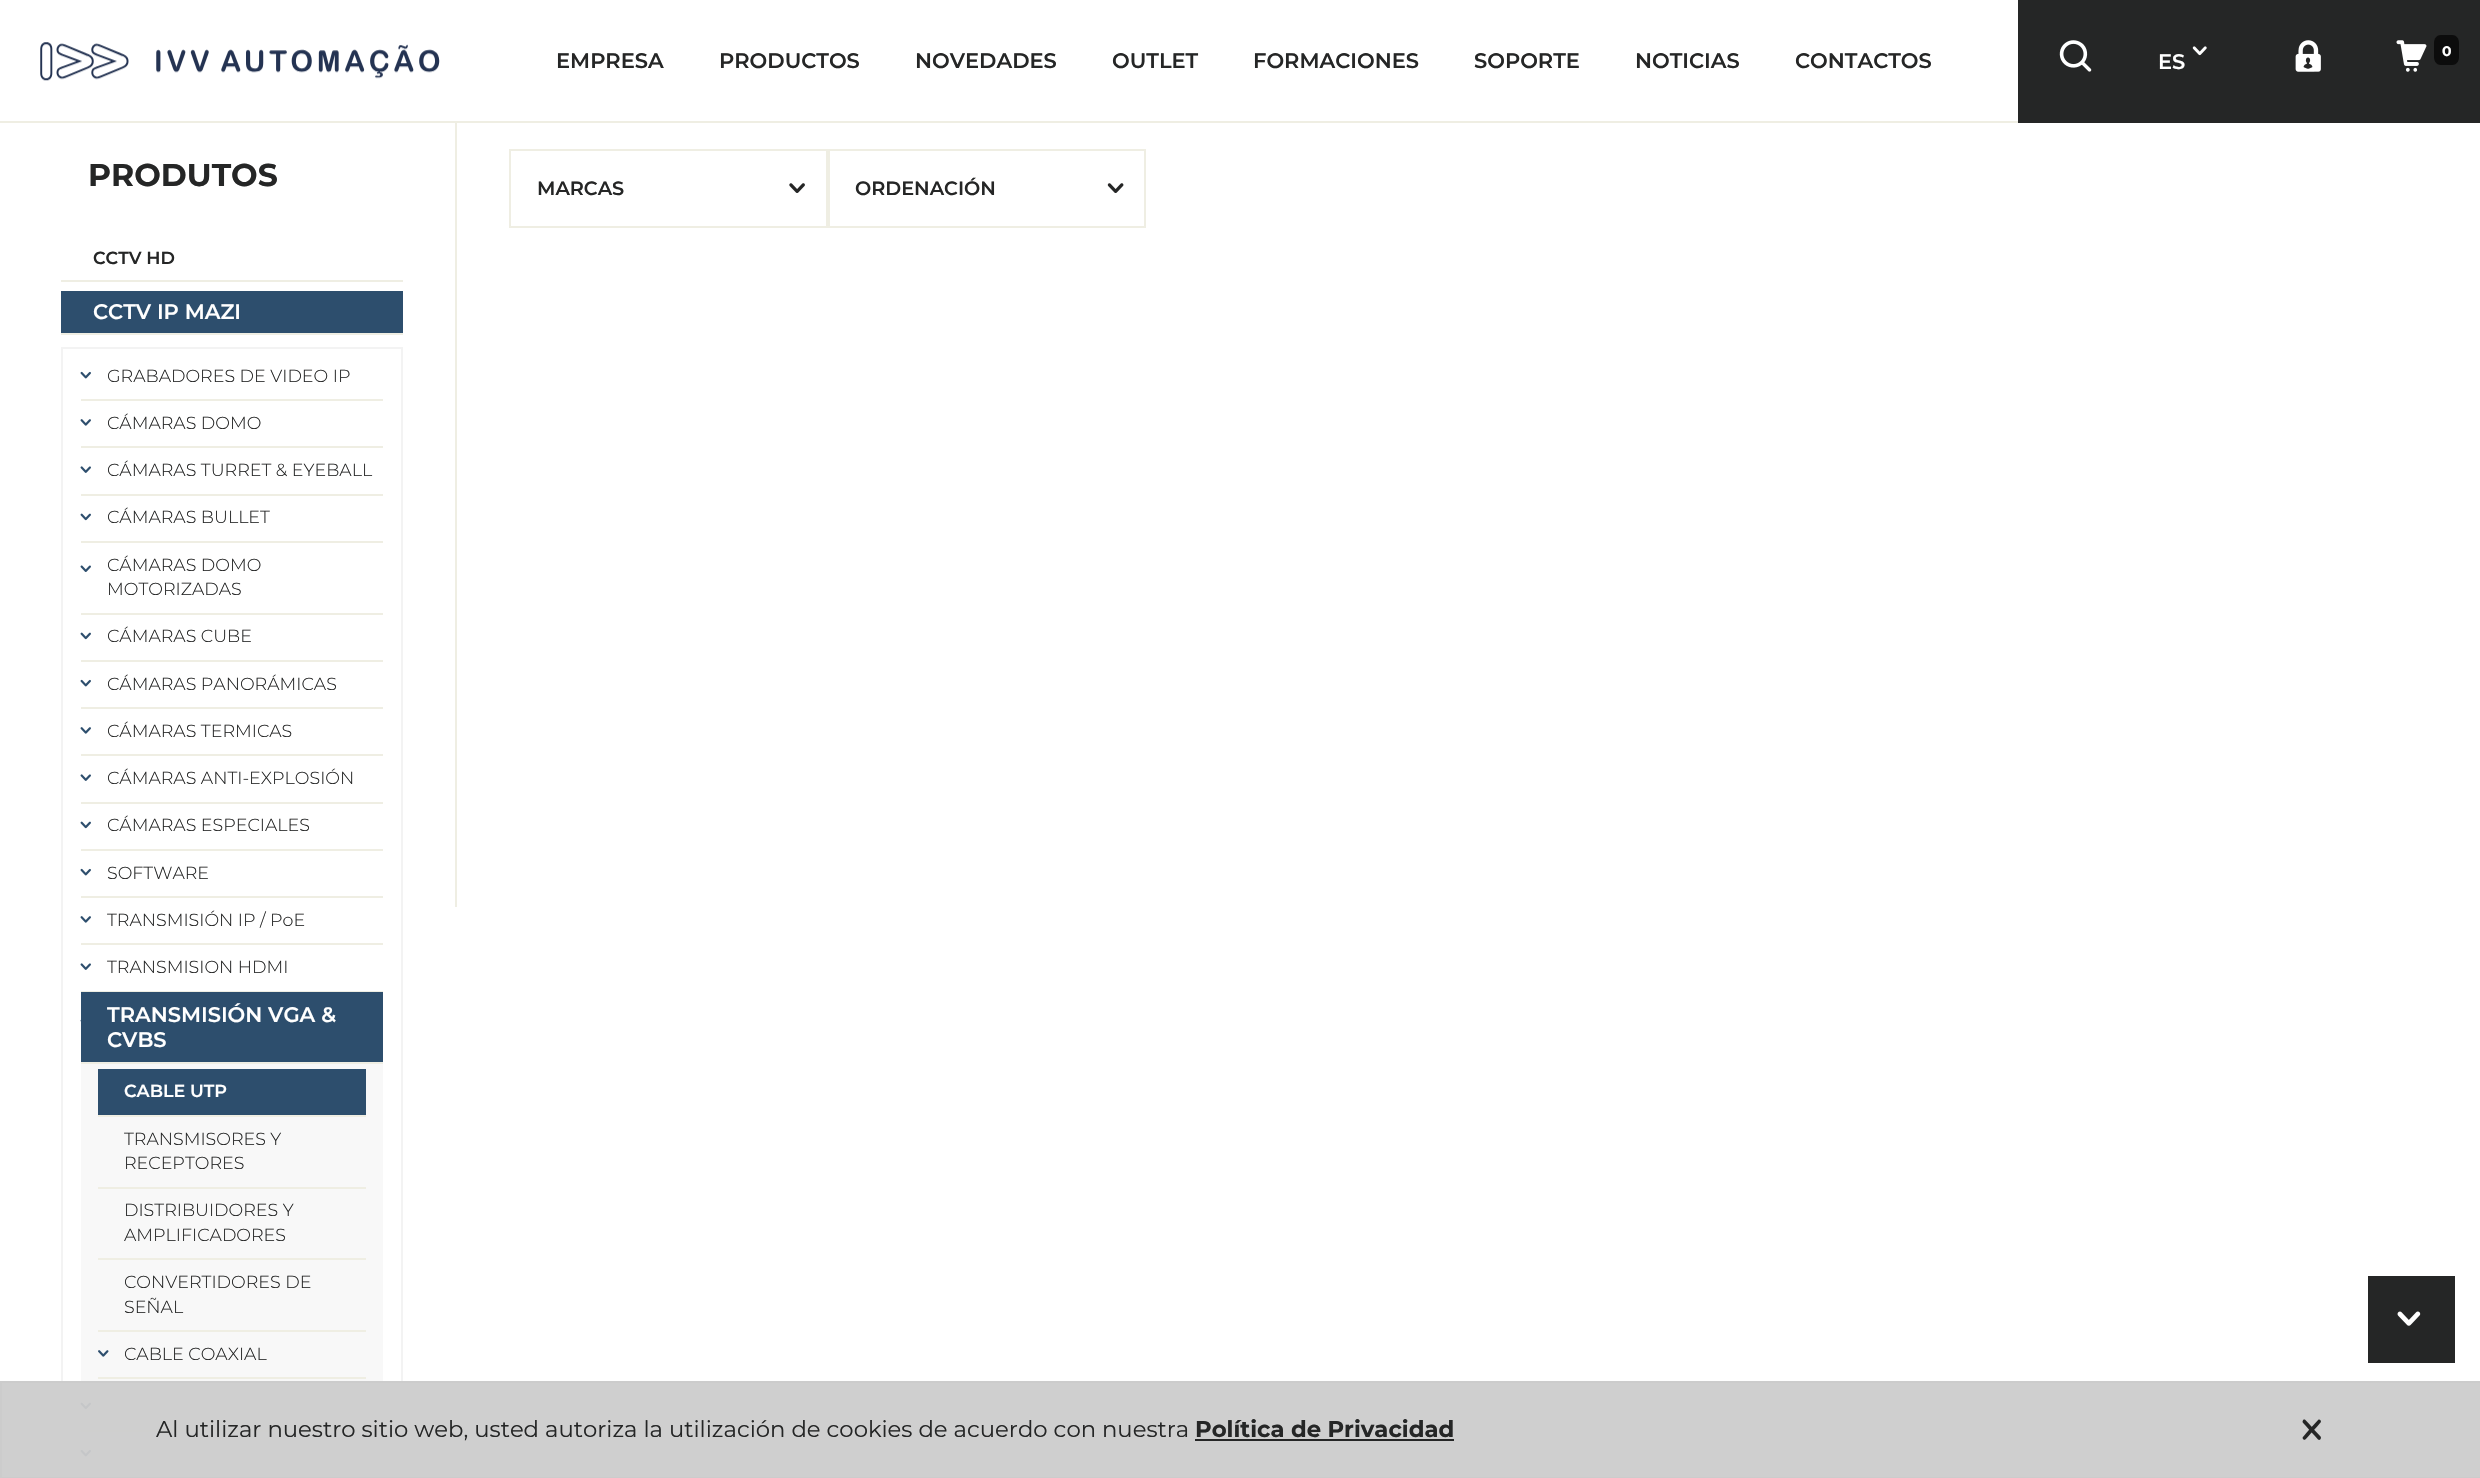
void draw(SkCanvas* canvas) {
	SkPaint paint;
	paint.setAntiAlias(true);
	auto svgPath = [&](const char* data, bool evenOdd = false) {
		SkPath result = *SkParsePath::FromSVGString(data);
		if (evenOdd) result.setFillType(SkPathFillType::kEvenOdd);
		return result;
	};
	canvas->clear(0xffffffff);
	paint.setColor(0xffefeee3);
	canvas->drawRect(SkRect::MakeXYWH(455, 121, 2, 786), paint);
	canvas->drawRect(SkRect::MakeXYWH(0, 121, 2018, 2), paint);
	canvas->drawImageRect(SkImages::DeferredFromEncodedData(SkData::MakeFromFileName("img1.png")), SkRect::MakeXYWH(40, 42, 400, 39), SkSamplingOptions());
	SkFont f1(fontMgr->matchFamilyStyle("Montserrat", SkFontStyle(600, SkFontStyle::kNormal_Width, SkFontStyle::kUpright_Slant)), 21);
	f1.setSubpixel(true);
	paint.setColor(0xff252626);
	canvas->drawString("EMPRESA", 556, 68, f1, paint);
	canvas->drawString("PRODUCTOS", 719, 68, f1, paint);
	canvas->drawString("NOVEDADES", 915, 68, f1, paint);
	canvas->drawString("OUTLET", 1112, 68, f1, paint);
	canvas->drawString("FORMACIONES", 1253, 68, f1, paint);
	canvas->drawString("SOPORTE", 1474, 68, f1, paint);
	canvas->drawString("NOTICIAS", 1635, 68, f1, paint);
	canvas->drawString("CONTACTOS", 1795, 68, f1, paint);
	canvas->drawRect(SkRect::MakeXYWH(2018, 0, 462, 123), paint);
	canvas->drawImageRect(SkImages::DeferredFromEncodedData(SkData::MakeFromFileName("img2.png")), SkRect::MakeXYWH(2059, 40, 33, 32), SkSamplingOptions());
	canvas->drawImageRect(SkImages::DeferredFromEncodedData(SkData::MakeFromFileName("img3.png")), SkRect::MakeXYWH(2295, 40, 26, 32), SkSamplingOptions());
	canvas->drawImageRect(SkImages::DeferredFromEncodedData(SkData::MakeFromFileName("img4.png")), SkRect::MakeXYWH(2396, 40, 31, 32), SkSamplingOptions());
	paint.setColor(0xff0c0c0c);
	canvas->drawPath(svgPath("M2440.5 35H2452.5C2456 35 2459 38.5 2459 42.5V57.5C2459 61.5 2456 65 2452.5 65H2440.5C2437 65 2434 61.5 2434 57.5V42.5C2434 38.5 2437 35 2440.5 35Z"), paint);
	SkFont f2(fontMgr->matchFamilyStyle("Montserrat", SkFontStyle::Bold()), 14);
	f2.setSubpixel(true);
	paint.setColor(0xffffffff);
	canvas->drawString("0", 2442, 56, f2, paint);
	canvas->drawImageRect(SkImages::DeferredFromEncodedData(SkData::MakeFromFileName("img5.png")), SkRect::MakeXYWH(2192, 46, 15, 10), SkSamplingOptions());
	canvas->drawString("ES", 2158, 69, f1, paint);
	SkFont f3(fontMgr->matchFamilyStyle("Montserrat", SkFontStyle::Bold()), 31.5);
	f3.setSubpixel(true);
	paint.setColor(0xff252626);
	canvas->drawString("PRODUTOS", 88, 186, f3, paint);
	paint.setColor(0xffefeee3);
	canvas->drawRect(SkRect::MakeXYWH(61, 280, 342, 2), paint);
	SkFont f4(fontMgr->matchFamilyStyle("Montserrat", SkFontStyle(600, SkFontStyle::kNormal_Width, SkFontStyle::kUpright_Slant)), 17.5);
	f4.setSubpixel(true);
	paint.setColor(0xff252626);
	canvas->drawString("CCTV HD", 93, 264, f4, paint);
	paint.setColor(0xffefeee3);
	canvas->drawRect(SkRect::MakeXYWH(61, 333, 342, 2), paint);
	paint.setColor(0xff2d4e6d);
	canvas->drawRect(SkRect::MakeXYWH(61, 291, 342, 42), paint);
	paint.setColor(0xffffffff);
	canvas->drawString("CCTV IP MAZI", 93, 319, f1, paint);
	paint.setStroke(true);
	paint.setStrokeWidth(2);
	paint.setColor(0xfff3f3f3);
	canvas->drawRect(SkRect::MakeXYWH(62, 348, 340, 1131), paint);
	paint.setStroke(false);
	paint.setColor(0xffefeee3);
	canvas->drawRect(SkRect::MakeXYWH(81, 399, 302, 2), paint);
	canvas->drawImageRect(SkImages::DeferredFromEncodedData(SkData::MakeFromFileName("img6.png")), SkRect::MakeXYWH(80, 371, 11, 8), SkSamplingOptions());
	SkFont f5(fontMgr->matchFamilyStyle("Montserrat", SkFontStyle(300, SkFontStyle::kNormal_Width, SkFontStyle::kUpright_Slant)), 17.5);
	f5.setSubpixel(true);
	paint.setColor(0xff252626);
	canvas->drawString("GRABADORES DE VIDEO IP", 107, 382, f5, paint);
	paint.setColor(0xffefeee3);
	canvas->drawRect(SkRect::MakeXYWH(81, 446, 302, 2), paint);
	canvas->drawImageRect(SkImages::DeferredFromEncodedData(SkData::MakeFromFileName("img7.png")), SkRect::MakeXYWH(80, 419, 11, 7), SkSamplingOptions());
	paint.setColor(0xff252626);
	canvas->drawString("CÁMARAS DOMO", 107, 429, f5, paint);
	paint.setColor(0xffefeee3);
	canvas->drawRect(SkRect::MakeXYWH(81, 494, 302, 2), paint);
	canvas->drawImageRect(SkImages::DeferredFromEncodedData(SkData::MakeFromFileName("img8.png")), SkRect::MakeXYWH(80, 466, 11, 7), SkSamplingOptions());
	paint.setColor(0xff252626);
	canvas->drawString("CÁMARAS TURRET & EYEBALL", 107, 476, f5, paint);
	paint.setColor(0xffefeee3);
	canvas->drawRect(SkRect::MakeXYWH(81, 541, 302, 2), paint);
	canvas->drawImageRect(SkImages::DeferredFromEncodedData(SkData::MakeFromFileName("img9.png")), SkRect::MakeXYWH(80, 513, 11, 8), SkSamplingOptions());
	paint.setColor(0xff252626);
	canvas->drawString("CÁMARAS BULLET", 107, 523, f5, paint);
	paint.setColor(0xffefeee3);
	canvas->drawRect(SkRect::MakeXYWH(81, 613, 302, 2), paint);
	canvas->drawImageRect(SkImages::DeferredFromEncodedData(SkData::MakeFromFileName("img10.png")), SkRect::MakeXYWH(80, 565, 11, 7), SkSamplingOptions());
	paint.setColor(0xff252626);
	canvas->drawString("CÁMARAS DOMO", 107, 571, f5, paint);
	canvas->drawString("MOTORIZADAS", 107, 595, f5, paint);
	paint.setColor(0xffefeee3);
	canvas->drawRect(SkRect::MakeXYWH(81, 660, 302, 2), paint);
	canvas->drawImageRect(SkImages::DeferredFromEncodedData(SkData::MakeFromFileName("img9.png")), SkRect::MakeXYWH(80, 632, 11, 8), SkSamplingOptions());
	paint.setColor(0xff252626);
	canvas->drawString("CÁMARAS CUBE", 107, 642, f5, paint);
	paint.setColor(0xffefeee3);
	canvas->drawRect(SkRect::MakeXYWH(81, 707, 302, 2), paint);
	canvas->drawImageRect(SkImages::DeferredFromEncodedData(SkData::MakeFromFileName("img6.png")), SkRect::MakeXYWH(80, 679, 11, 8), SkSamplingOptions());
	paint.setColor(0xff252626);
	canvas->drawString("CÁMARAS PANORÁMICAS", 107, 690, f5, paint);
	paint.setColor(0xffefeee3);
	canvas->drawRect(SkRect::MakeXYWH(81, 754, 302, 2), paint);
	canvas->drawImageRect(SkImages::DeferredFromEncodedData(SkData::MakeFromFileName("img7.png")), SkRect::MakeXYWH(80, 727, 11, 7), SkSamplingOptions());
	paint.setColor(0xff252626);
	canvas->drawString("CÁMARAS TERMICAS", 107, 737, f5, paint);
	paint.setColor(0xffefeee3);
	canvas->drawRect(SkRect::MakeXYWH(81, 802, 302, 2), paint);
	canvas->drawImageRect(SkImages::DeferredFromEncodedData(SkData::MakeFromFileName("img8.png")), SkRect::MakeXYWH(80, 774, 11, 7), SkSamplingOptions());
	paint.setColor(0xff252626);
	canvas->drawString("CÁMARAS ANTI-EXPLOSIÓN", 107, 784, f5, paint);
	paint.setColor(0xffefeee3);
	canvas->drawRect(SkRect::MakeXYWH(81, 849, 302, 2), paint);
	canvas->drawImageRect(SkImages::DeferredFromEncodedData(SkData::MakeFromFileName("img9.png")), SkRect::MakeXYWH(80, 821, 11, 8), SkSamplingOptions());
	paint.setColor(0xff252626);
	canvas->drawString("CÁMARAS ESPECIALES", 107, 831, f5, paint);
	paint.setColor(0xffefeee3);
	canvas->drawRect(SkRect::MakeXYWH(81, 896, 302, 2), paint);
	canvas->drawImageRect(SkImages::DeferredFromEncodedData(SkData::MakeFromFileName("img6.png")), SkRect::MakeXYWH(80, 868, 11, 8), SkSamplingOptions());
	paint.setColor(0xff252626);
	canvas->drawString("SOFTWARE", 107, 879, f5, paint);
	paint.setColor(0xffefeee3);
	canvas->drawRect(SkRect::MakeXYWH(81, 943, 302, 2), paint);
	canvas->drawImageRect(SkImages::DeferredFromEncodedData(SkData::MakeFromFileName("img7.png")), SkRect::MakeXYWH(80, 916, 11, 7), SkSamplingOptions());
	paint.setColor(0xff252626);
	canvas->drawString("TRANSMISIÓN IP / PoE", 107, 926, f5, paint);
	paint.setColor(0xffefeee3);
	canvas->drawRect(SkRect::MakeXYWH(81, 991, 302, 1), paint);
	canvas->drawImageRect(SkImages::DeferredFromEncodedData(SkData::MakeFromFileName("img8.png")), SkRect::MakeXYWH(80, 963, 11, 7), SkSamplingOptions());
	paint.setColor(0xff252626);
	canvas->drawString("TRANSMISION HDMI", 107, 973, f5, paint);
	paint.setColor(0xffefeee3);
	canvas->drawRect(SkRect::MakeXYWH(81, 1062, 302, 2), paint);
	paint.setColor(0xff2d4e6d);
	canvas->drawRect(SkRect::MakeXYWH(81, 992, 302, 70), paint);
	canvas->drawImageRect(SkImages::DeferredFromEncodedData(SkData::MakeFromFileName("img11.png")), SkRect::MakeXYWH(80, 1019, 1, 3), SkSamplingOptions());
	paint.setColor(0xffffffff);
	canvas->drawString("TRANSMISIÓN VGA &", 107, 1022, f1, paint);
	canvas->drawString("CVBS", 107, 1047, f1, paint);
	paint.setColor(0xfff8f8f8);
	canvas->drawRect(SkRect::MakeXYWH(81, 1064, 302, 320), paint);
	paint.setColor(0xffefeee3);
	canvas->drawRect(SkRect::MakeXYWH(98, 1115, 268, 2), paint);
	paint.setColor(0xff2d4e6d);
	canvas->drawRect(SkRect::MakeXYWH(98, 1069, 268, 46), paint);
	paint.setColor(0xffffffff);
	canvas->drawString("CABLE UTP", 124, 1097, f4, paint);
	paint.setColor(0xffefeee3);
	canvas->drawRect(SkRect::MakeXYWH(98, 1187, 268, 2), paint);
	paint.setColor(0xff252626);
	canvas->drawString("TRANSMISORES Y", 124, 1145, f5, paint);
	canvas->drawString("RECEPTORES", 124, 1169, f5, paint);
	paint.setColor(0xffefeee3);
	canvas->drawRect(SkRect::MakeXYWH(98, 1258, 268, 2), paint);
	paint.setColor(0xff252626);
	canvas->drawString("DISTRIBUIDORES Y", 124, 1216, f5, paint);
	canvas->drawString("AMPLIFICADORES", 124, 1241, f5, paint);
	paint.setColor(0xffefeee3);
	canvas->drawRect(SkRect::MakeXYWH(98, 1330, 268, 2), paint);
	paint.setColor(0xff252626);
	canvas->drawString("CONVERTIDORES DE", 124, 1288, f5, paint);
	canvas->drawString("SEÑAL", 124, 1313, f5, paint);
	paint.setColor(0xffefeee3);
	canvas->drawRect(SkRect::MakeXYWH(98, 1377, 268, 2), paint);
	canvas->drawImageRect(SkImages::DeferredFromEncodedData(SkData::MakeFromFileName("img12.png")), SkRect::MakeXYWH(98, 1350, 11, 7), SkSamplingOptions());
	paint.setColor(0xff252626);
	canvas->drawString("CABLE COAXIAL", 124, 1360, f5, paint);
	paint.setColor(0xffefeee3);
	canvas->drawRect(SkRect::MakeXYWH(81, 1430, 302, 2), paint);
	canvas->drawImageRect(SkImages::DeferredFromEncodedData(SkData::MakeFromFileName("img9.png")), SkRect::MakeXYWH(80, 1402, 11, 8), SkSamplingOptions());
	canvas->drawImageRect(SkImages::DeferredFromEncodedData(SkData::MakeFromFileName("img6.png")), SkRect::MakeXYWH(80, 1449, 11, 8), SkSamplingOptions());
	paint.setStroke(true);
	canvas->drawRect(SkRect::MakeXYWH(510, 150, 317, 77), paint);
	SkFont f6(fontMgr->matchFamilyStyle("Montserrat", SkFontStyle(600, SkFontStyle::kNormal_Width, SkFontStyle::kUpright_Slant)), 19.25);
	f6.setSubpixel(true);
	paint.setStroke(false);
	paint.setColor(0xff252626);
	canvas->drawString("MARCAS", 537, 195, f6, paint);
	canvas->drawImageRect(SkImages::DeferredFromEncodedData(SkData::MakeFromFileName("img13.png")), SkRect::MakeXYWH(789, 183, 16, 10), SkSamplingOptions());
	paint.setStroke(true);
	paint.setColor(0xffefeee3);
	canvas->drawRect(SkRect::MakeXYWH(829, 150, 316, 77), paint);
	paint.setStroke(false);
	paint.setColor(0xff252626);
	canvas->drawString("ORDENACIÓN", 855, 195, f6, paint);
	canvas->drawImageRect(SkImages::DeferredFromEncodedData(SkData::MakeFromFileName("img14.png")), SkRect::MakeXYWH(1107, 183, 17, 10), SkSamplingOptions());
	canvas->drawRect(SkRect::MakeXYWH(2368, 1276, 87, 87), paint);
	canvas->drawImageRect(SkImages::DeferredFromEncodedData(SkData::MakeFromFileName("img15.png")), SkRect::MakeXYWH(2397, 1311, 24, 15), SkSamplingOptions());
	paint.setColor(0xf2cccccc);
	canvas->drawRect(SkRect::MakeXYWH(1, 1382, 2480, 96), paint);
	paint.setStroke(true);
	paint.setColor(0xffcccccc);
	canvas->drawRect(SkRect::MakeXYWH(1, 1382, 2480, 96), paint);
	SkFont f7(fontMgr->matchFamilyStyle("Montserrat", SkFontStyle::Normal()), 22.75);
	f7.setSubpixel(true);
	paint.setStroke(false);
	paint.setColor(0xff252626);
	canvas->drawString("Al utilizar nuestro sitio web, usted autoriza la utilización de cookies de acuerdo con nuestra", 156, 1437, f7, paint);
	SkFont f8(fontMgr->matchFamilyStyle("Montserrat", SkFontStyle::Bold()), 22.75);
	f8.setSubpixel(true);
	canvas->drawString("Política de Privacidad", 1195, 1437, f8, paint);
	canvas->drawRect(SkRect::MakeXYWH(1195, 1439, 259, 2), paint);
	canvas->drawImageRect(SkImages::DeferredFromEncodedData(SkData::MakeFromFileName("img16.png")), SkRect::MakeXYWH(2302, 1419, 19, 21), SkSamplingOptions());
}
